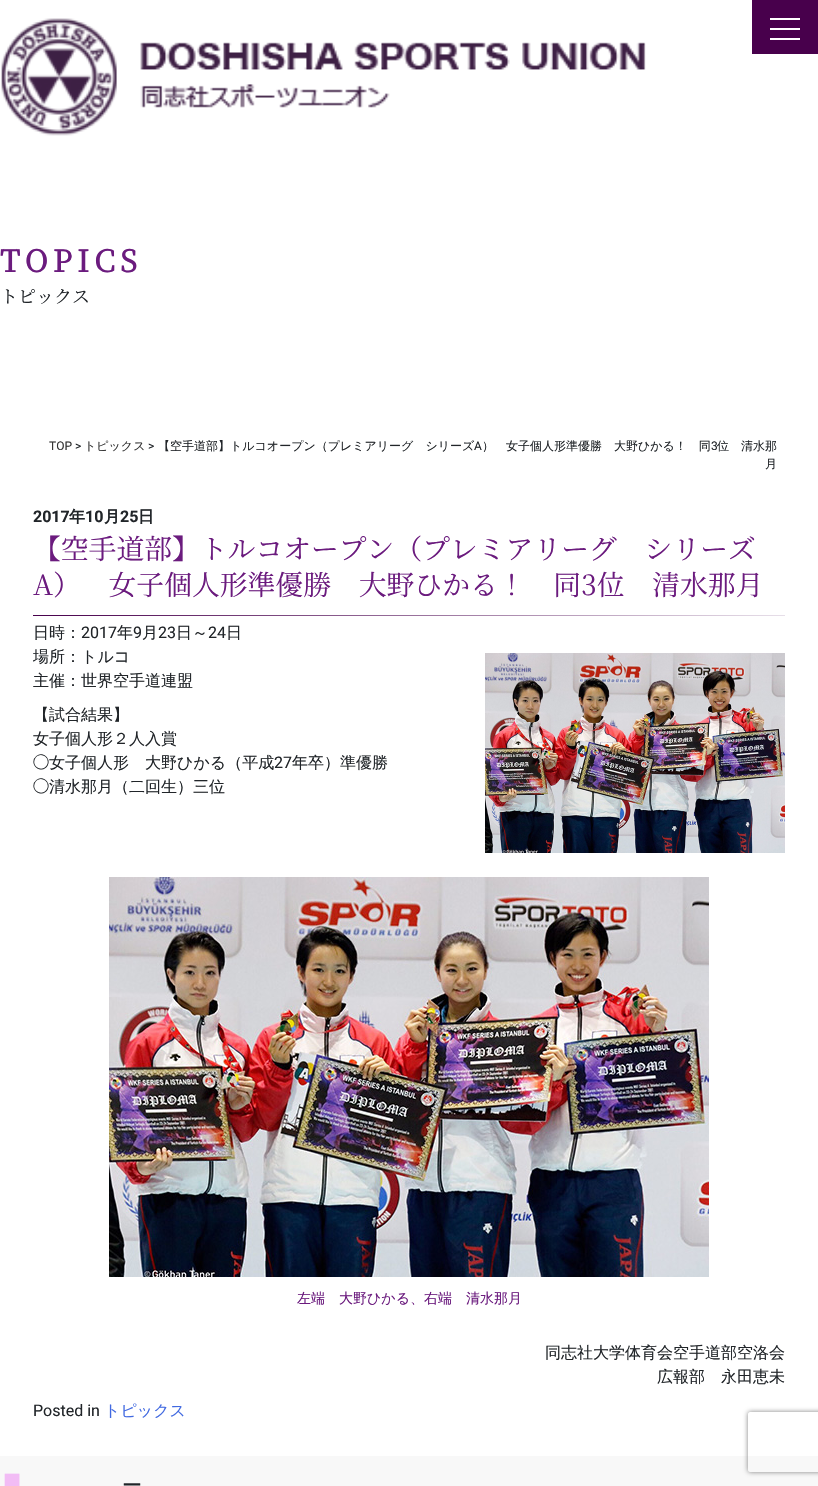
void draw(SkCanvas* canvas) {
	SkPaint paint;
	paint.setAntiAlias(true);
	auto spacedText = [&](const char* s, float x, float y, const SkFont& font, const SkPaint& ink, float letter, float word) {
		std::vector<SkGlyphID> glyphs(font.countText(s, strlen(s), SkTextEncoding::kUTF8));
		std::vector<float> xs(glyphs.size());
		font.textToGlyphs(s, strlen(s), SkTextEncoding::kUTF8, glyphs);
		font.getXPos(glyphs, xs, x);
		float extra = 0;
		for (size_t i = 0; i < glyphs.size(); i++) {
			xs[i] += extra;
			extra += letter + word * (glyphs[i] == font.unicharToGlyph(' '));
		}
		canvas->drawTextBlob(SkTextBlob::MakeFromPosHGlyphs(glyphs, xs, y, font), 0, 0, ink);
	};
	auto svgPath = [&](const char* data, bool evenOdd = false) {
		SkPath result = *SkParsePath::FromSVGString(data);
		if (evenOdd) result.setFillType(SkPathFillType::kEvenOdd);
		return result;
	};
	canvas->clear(0xffffffff);
	canvas->drawImageRect(SkImages::DeferredFromEncodedData(SkData::MakeFromFileName("img1.png")), SkRect::MakeXYWH(1, 18, 645, 118), SkSamplingOptions());
	paint.setColor(0xff48004c);
	canvas->drawRect(SkRect::MakeXYWH(752, 0, 66, 54), paint);
	paint.setColor(0xffffffff);
	canvas->drawRect(SkRect::MakeXYWH(770, 28, 30, 2), paint);
	canvas->drawRect(SkRect::MakeXYWH(770, 18, 30, 2), paint);
	canvas->drawRect(SkRect::MakeXYWH(770, 38, 30, 2), paint);
	SkFont f1(fontMgr->matchFamilyStyle("Noto Serif JP", SkFontStyle::Bold()), 30);
	f1.setSubpixel(true);
	paint.setColor(0xff6b1b7e);
	spacedText("TOPICS", 0, 272, f1, paint, 5, 0);
	SkFont f2(fontMgr->matchFamilyStyle("Noto Serif JP", SkFontStyle(200, SkFontStyle::kNormal_Width, SkFontStyle::kUpright_Slant)), 18);
	f2.setSubpixel(true);
	paint.setColor(0xff212529);
	canvas->drawString("トピックス", 0, 303, f2, paint);
	SkFont f3(fontMgr->matchFamilyStyle("Roboto", SkFontStyle::Normal()), 12);
	f3.setSubpixel(true);
	paint.setColor(0xff333333);
	canvas->drawString("TOP", 49, 450, f3, paint);
	paint.setColor(0xff212529);
	canvas->drawString(">", 75, 450, f3, paint);
	SkFont f4(fontMgr->matchFamilyStyle("WenQuanYi Zen Hei", SkFontStyle(500, SkFontStyle::kNormal_Width, SkFontStyle::kUpright_Slant)), 12);
	f4.setSubpixel(true);
	paint.setColor(0xff333333);
	canvas->drawString("トピックス", 84, 450, f4, paint);
	paint.setColor(0xff212529);
	canvas->drawString(">", 148, 450, f3, paint);
	canvas->drawString("【空手道部】トルコオープン（プレミアリーグ　シリーズ", 158, 450, f4, paint);
	canvas->drawString("A", 474, 450, f3, paint);
	canvas->drawString("）　女子個人形準優勝　大野ひかる！　同", 482, 450, f4, paint);
	canvas->drawString("3", 711, 450, f3, paint);
	canvas->drawString("位　清水那", 717, 450, f4, paint);
	canvas->drawString("月", 765, 468, f4, paint);
	SkFont f5(fontMgr->matchFamilyStyle("Roboto", SkFontStyle::Bold()), 16);
	f5.setSubpixel(true);
	canvas->drawString("2017", 33, 522, f5, paint);
	SkFont f6(fontMgr->matchFamilyStyle("WenQuanYi Zen Hei", SkFontStyle::Bold()), 16);
	f6.setSubpixel(true);
	canvas->drawString("年", 69, 522, f6, paint);
	canvas->drawString("10", 85, 522, f5, paint);
	canvas->drawString("月", 104, 522, f6, paint);
	canvas->drawString("25", 120, 522, f5, paint);
	canvas->drawString("日", 138, 522, f6, paint);
	{
		const SkColor colors[] = {0xff48004c, 0xffe7dfe9};
		const float stops[] = {0, 1};
		const SkPoint ends[] = {{33, 616}, {785, 616}};
		paint.setShader(SkGradientShader::MakeLinear(ends, colors, stops, 2, SkTileMode::kClamp));
		paint.setAlpha(255);
	}
	canvas->drawRect(SkRect::MakeXYWH(33, 615, 752, 1), paint);
	SkFont f7(fontMgr->matchFamilyStyle("Noto Serif JP", SkFontStyle(200, SkFontStyle::kNormal_Width, SkFontStyle::kUpright_Slant)), 27.8);
	f7.setSubpixel(true);
	paint.setShader(nullptr);
	paint.setColor(0xff6b1b7e);
	canvas->drawString("【空手道部】トルコオープン（プレミアリーグ　シリーズ", 33, 559, f7, paint);
	canvas->drawString("A）　女子個人形準優勝　大野ひかる！　同3位　清水那月", 33, 595, f7, paint);
	SkFont f8(fontMgr->matchFamilyStyle("WenQuanYi Zen Hei", SkFontStyle(500, SkFontStyle::kNormal_Width, SkFontStyle::kUpright_Slant)), 16);
	f8.setSubpixel(true);
	paint.setColor(0xff212529);
	canvas->drawString("日時：", 33, 638, f8, paint);
	SkFont f9(fontMgr->matchFamilyStyle("Roboto", SkFontStyle::Normal()), 16);
	f9.setSubpixel(true);
	canvas->drawString("2017", 81, 638, f9, paint);
	canvas->drawString("年", 117, 638, f8, paint);
	canvas->drawString("9", 133, 638, f9, paint);
	canvas->drawString("月", 142, 638, f8, paint);
	canvas->drawString("23", 158, 638, f9, paint);
	canvas->drawString("日～", 176, 638, f8, paint);
	canvas->drawString("24", 208, 638, f9, paint);
	canvas->drawString("日", 226, 638, f8, paint);
	canvas->drawString("場所：トルコ", 33, 662, f8, paint);
	canvas->drawString("主催：世界空手道連盟", 33, 686, f8, paint);
	canvas->drawImageRect(SkImages::DeferredFromEncodedData(SkData::MakeFromFileName("img2.png")), SkRect::MakeXYWH(485, 653, 300, 200), SkSamplingOptions());
	canvas->drawString("【試合結果】", 33, 720, f8, paint);
	canvas->drawString("女子個人形２人入賞", 33, 744, f8, paint);
	SkFont f10(fontMgr->matchFamilyStyle("IPAPGothic", SkFontStyle::Normal()), 16);
	f10.setSubpixel(true);
	canvas->drawString("◯", 33, 768, f10, paint);
	canvas->drawString("女子個人形　大野ひかる（平成", 49, 768, f8, paint);
	canvas->drawString("27", 274, 768, f9, paint);
	canvas->drawString("年卒）準優勝", 292, 768, f8, paint);
	canvas->drawString("◯", 33, 792, f10, paint);
	canvas->drawString("清水那月（二回生）三位", 49, 792, f8, paint);
	canvas->drawImageRect(SkImages::DeferredFromEncodedData(SkData::MakeFromFileName("img3.png")), SkRect::MakeXYWH(109, 877, 600, 400), SkSamplingOptions());
	SkFont f11(fontMgr->matchFamilyStyle("WenQuanYi Zen Hei", SkFontStyle(500, SkFontStyle::kNormal_Width, SkFontStyle::kUpright_Slant)), 14);
	f11.setSubpixel(true);
	paint.setColor(0xff6b1b7e);
	canvas->drawString("左端　大野ひかる、右端　清水那月", 297, 1303, f11, paint);
	paint.setColor(0xff212529);
	canvas->drawString("同志社大学体育会空手道部空洛会", 545, 1358, f8, paint);
	canvas->drawString("広報部　永田恵未", 657, 1382, f8, paint);
	canvas->drawString("Posted in", 33, 1416, f9, paint);
	paint.setColor(0xff4169e1);
	canvas->drawString("トピックス", 104, 1416, f8, paint);
	paint.setColor(0xfff8f8f8);
	canvas->drawRect(SkRect::MakeXYWH(0, 1456, 818, 30), paint);
	SkFont f12(fontMgr->matchFamilyStyle("Liberation Sans", SkFontStyle::Normal()), 30);
	f12.setSubpixel(true);
	paint.setColor(0xfff2bcf5);
	canvas->drawString("■", 3, 1490, f12, paint);
	SkFont f13(fontMgr->matchFamilyStyle("WenQuanYi Zen Hei", SkFontStyle(500, SkFontStyle::kNormal_Width, SkFontStyle::kUpright_Slant)), 20);
	f13.setSubpixel(true);
	paint.setColor(0xff212529);
	canvas->drawString("ー", 122, 1492, f13, paint);
	canvas->save();
	canvas->clipPath(svgPath("M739 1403H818V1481H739ZM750 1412H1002C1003 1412 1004 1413 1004 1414V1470C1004 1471 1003 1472 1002 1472H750C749 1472 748 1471 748 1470V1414C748 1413 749 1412 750 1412Z", true), true);
	paint.setColor(0xff808080);
	paint.setMaskFilter(SkMaskFilter::MakeBlur(kNormal_SkBlurStyle, 2.5));
	canvas->drawRoundRect(SkRect::MakeXYWH(748, 1412, 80, 60), 2, 2, paint);
	paint.setMaskFilter(nullptr);
	canvas->restore();
}
